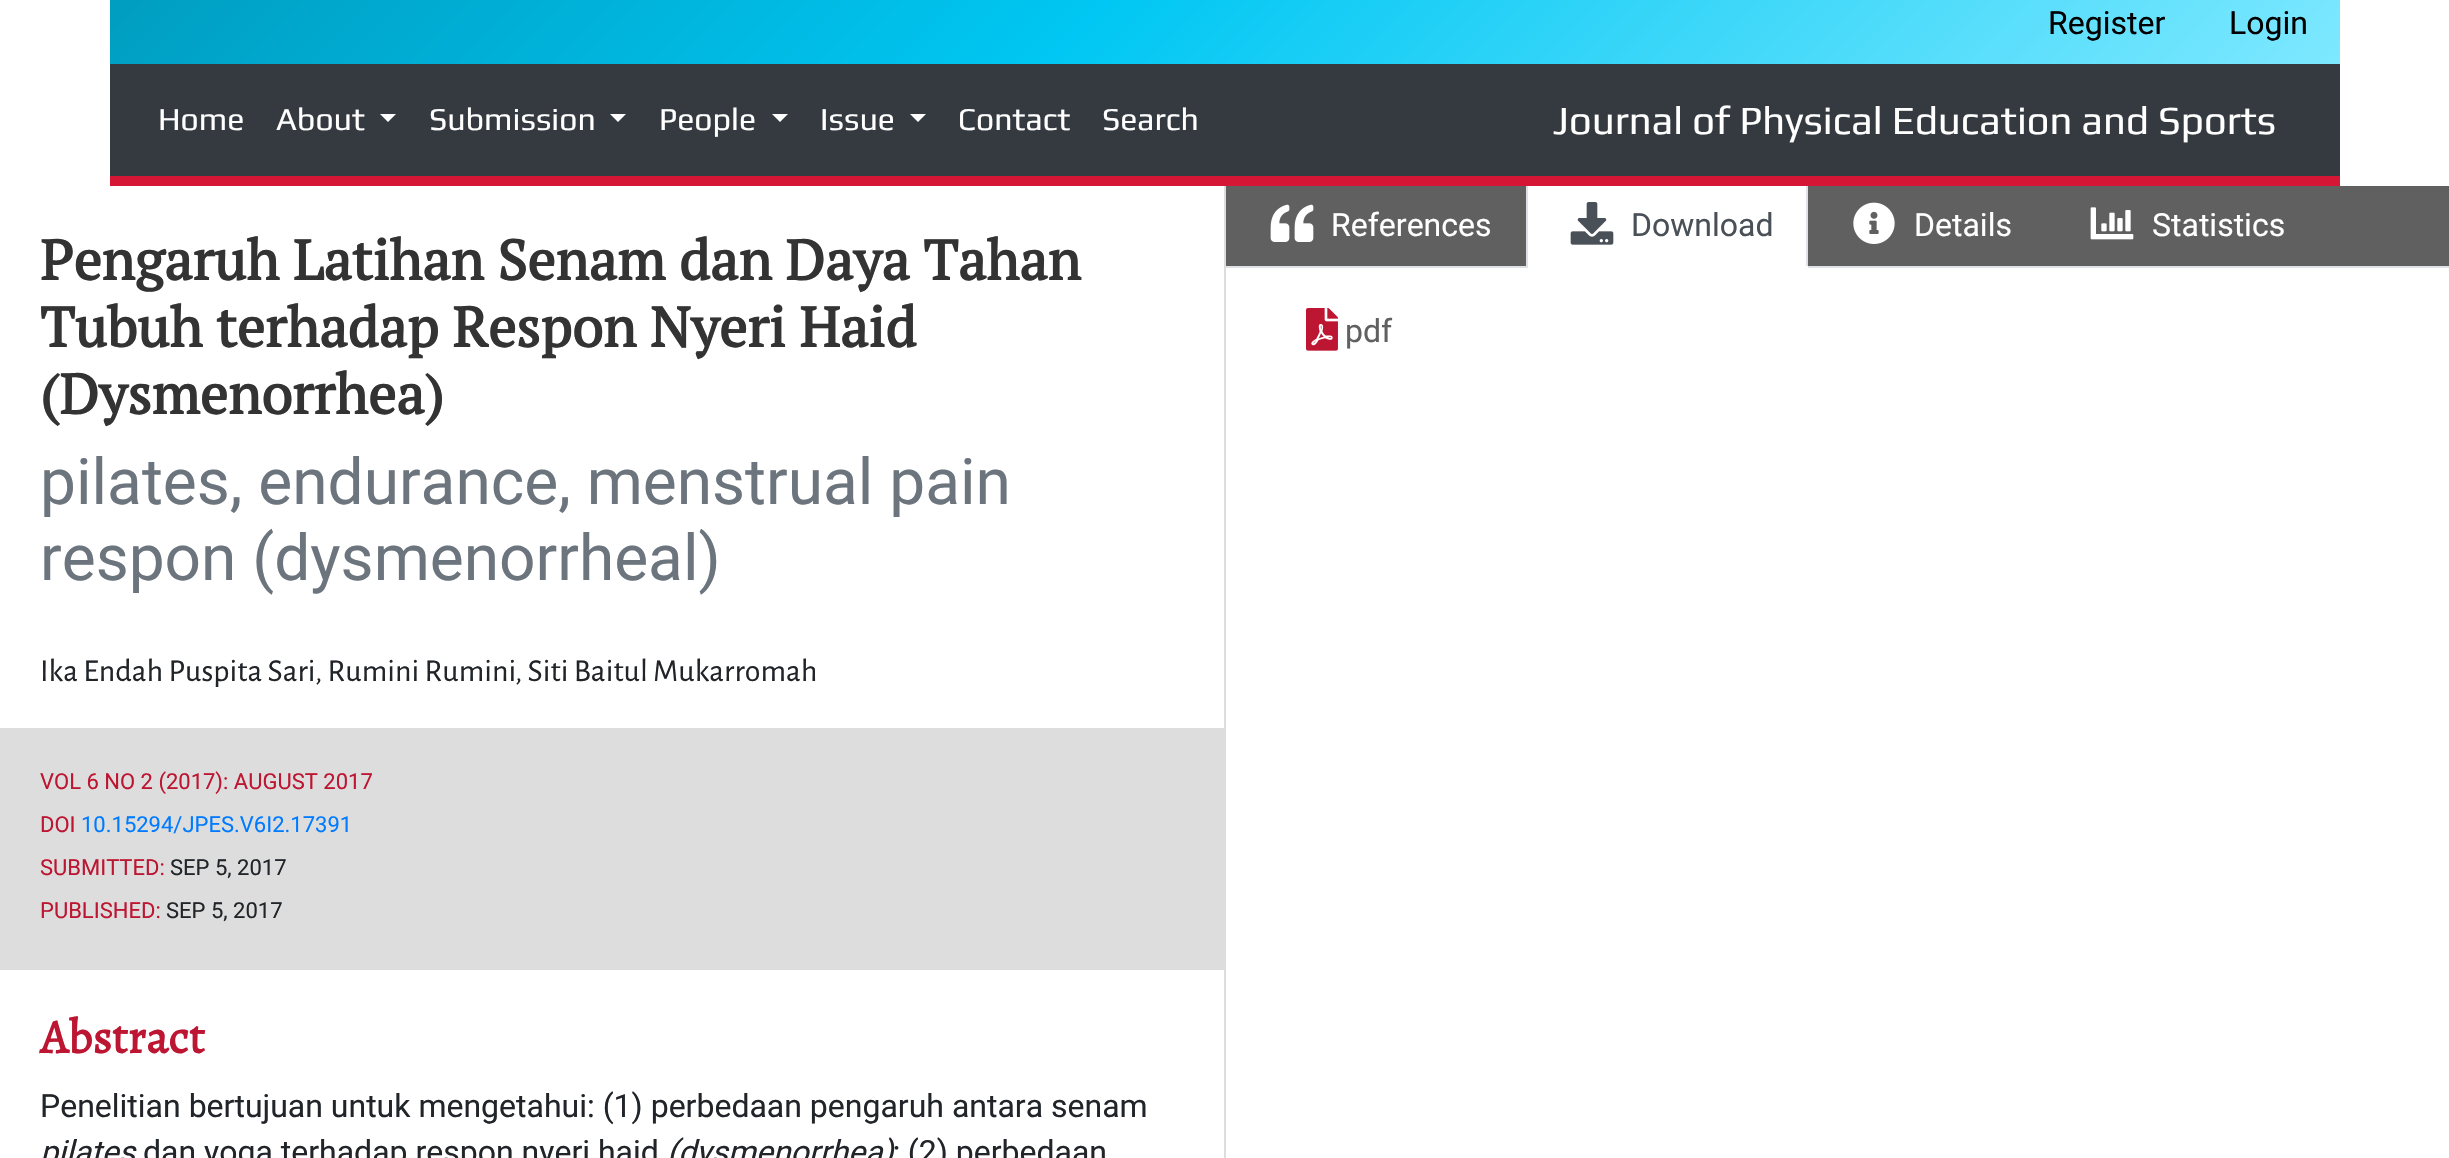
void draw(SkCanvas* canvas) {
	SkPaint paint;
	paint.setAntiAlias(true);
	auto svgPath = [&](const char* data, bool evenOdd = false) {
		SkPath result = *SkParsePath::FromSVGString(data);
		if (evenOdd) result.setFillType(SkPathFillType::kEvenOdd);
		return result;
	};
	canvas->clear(0xffffffff);
	{
		const SkColor colors[] = {0xff009dc0, 0xff00c7f3, 0xff7ee8ff};
		const float stops[] = {0, 0.44, 1};
		const SkPoint ends[] = {{648, -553}, {1803, 602}};
		paint.setShader(SkGradientShader::MakeLinear(ends, colors, stops, 3, SkTileMode::kClamp));
		paint.setAlpha(255);
	}
	canvas->drawRect(SkRect::MakeXYWH(110, 0, 2230, 64), paint);
	SkFont f1(fontMgr->matchFamilyStyle("Roboto", SkFontStyle::Normal()), 32);
	f1.setSubpixel(true);
	paint.setShader(nullptr);
	paint.setColor(0xff000000);
	canvas->drawString("Register", 2048, 34, f1, paint);
	canvas->drawString("Login", 2229, 34, f1, paint);
	paint.setColor(0xff343a40);
	canvas->drawRect(SkRect::MakeXYWH(110, 64, 2230, 112), paint);
	paint.setColor(0xffd61635);
	canvas->drawRect(SkRect::MakeXYWH(110, 176, 2230, 10), paint);
	SkFont f2(fontMgr->matchFamilyStyle("Play", SkFontStyle::Normal()), 32);
	f2.setSubpixel(true);
	paint.setColor(0xffffffff);
	canvas->drawString("Home", 158, 130, f2, paint);
	canvas->drawString("About", 276, 130, f2, paint);
	canvas->drawPath(svgPath("M380 114H396L388 122Z"), paint);
	canvas->drawString("Submission", 429, 130, f2, paint);
	canvas->drawPath(svgPath("M610 114H626L618 122Z"), paint);
	canvas->drawString("People", 659, 130, f2, paint);
	canvas->drawPath(svgPath("M772 114H788L780 122Z"), paint);
	canvas->drawString("Issue", 820, 130, f2, paint);
	canvas->drawPath(svgPath("M910 114H926L918 122Z"), paint);
	canvas->drawString("Contact", 958, 130, f2, paint);
	canvas->drawString("Search", 1102, 130, f2, paint);
	SkFont f3(fontMgr->matchFamilyStyle("Play", SkFontStyle::Normal()), 40);
	f3.setSubpixel(true);
	canvas->drawString("Journal of Physical Education and Sports", 1553, 134, f3, paint);
	paint.setColor(0xffdddddd);
	canvas->drawRect(SkRect::MakeXYWH(1224, 186, 2, 972), paint);
	SkFont f4(fontMgr->matchFamilyStyle("PT Serif", SkFontStyle::Bold()), 56);
	f4.setSubpixel(true);
	paint.setColor(0xff333333);
	canvas->drawString("Pengaruh Latihan Senam dan Daya Tahan", 40, 280, f4, paint);
	canvas->drawString("Tubuh terhadap Respon Nyeri Haid", 40, 347, f4, paint);
	canvas->drawString("(Dysmenorrhea)", 40, 414, f4, paint);
	SkFont f5(fontMgr->matchFamilyStyle("Roboto", SkFontStyle::Normal()), 64);
	f5.setSubpixel(true);
	paint.setColor(0xff6c757d);
	canvas->drawString("pilates, endurance, menstrual pain", 40, 504, f5, paint);
	canvas->drawString("respon (dysmenorrheal)", 40, 580, f5, paint);
	SkFont f6(fontMgr->matchFamilyStyle("Alegreya Sans", SkFontStyle::Normal()), 32);
	f6.setSubpixel(true);
	paint.setColor(0xff212529);
	canvas->drawString("Ika Endah Puspita Sari", 40, 681, f6, paint);
	canvas->drawString(", Rumini Rumini", 315, 681, f6, paint);
	canvas->drawString(", Siti Baitul Mukarromah", 515, 681, f6, paint);
	paint.setColor(0xffdddddd);
	canvas->drawRect(SkRect::MakeXYWH(0, 728, 1224, 242), paint);
	SkFont f7(fontMgr->matchFamilyStyle("Roboto", SkFontStyle::Normal()), 22);
	f7.setSubpixel(true);
	paint.setColor(0xffbd1632);
	canvas->drawString("VOL 6 NO 2 (2017): AUGUST 2017", 40, 789, f7, paint);
	canvas->drawString("DOI", 40, 832, f7, paint);
	paint.setColor(0xff007bff);
	canvas->drawString("10.15294/JPES.V6I2.17391", 81, 832, f7, paint);
	paint.setColor(0xffbd1632);
	canvas->drawString("SUBMITTED:", 40, 875, f7, paint);
	paint.setColor(0xff212529);
	canvas->drawString("SEP 5, 2017", 170, 875, f7, paint);
	paint.setColor(0xffbd1632);
	canvas->drawString("PUBLISHED:", 40, 918, f7, paint);
	paint.setColor(0xff212529);
	canvas->drawString("SEP 5, 2017", 166, 918, f7, paint);
	SkFont f8(fontMgr->matchFamilyStyle("Alegreya", SkFontStyle::Bold()), 48);
	f8.setSubpixel(true);
	paint.setColor(0xffbd1632);
	canvas->drawString("Abstract", 40, 1053, f8, paint);
	paint.setColor(0xff212529);
	canvas->drawString("Penelitian bertujuan untuk mengetahui: (1) perbedaan pengaruh antara senam", 40, 1117, f1, paint);
	SkFont f9(fontMgr->matchFamilyStyle("Roboto", SkFontStyle::Italic()), 32);
	f9.setSubpixel(true);
	canvas->drawString("pilates", 40, 1163, f9, paint);
	canvas->drawString("dan yoga terhadap respon nyeri haid", 143, 1163, f1, paint);
	canvas->drawString("(dysmenorrhea)", 667, 1163, f9, paint);
	canvas->drawString("; (2) perbedaan", 893, 1163, f1, paint);
	paint.setColor(0xff606060);
	canvas->drawRect(SkRect::MakeXYWH(1226, 186, 1223, 80), paint);
	paint.setColor(0xffdee2e6);
	canvas->drawRect(SkRect::MakeXYWH(1226, 266, 1223, 2), paint);
	canvas->drawImageRect(SkImages::DeferredFromEncodedData(SkData::MakeFromFileName("img1.png")), SkRect::MakeXYWH(1270, 204, 44, 38), SkSamplingOptions());
	paint.setColor(0xffffffff);
	canvas->drawString("References", 1331, 236, f1, paint);
	canvas->drawRect(SkRect::MakeXYWH(1528, 186, 278, 80), paint);
	paint.setColor(0xffdee2e6);
	canvas->drawRect(SkRect::MakeXYWH(1806, 186, 2, 82), paint);
	paint.setColor(0xffffffff);
	canvas->drawRect(SkRect::MakeXYWH(1526, 266, 282, 2), paint);
	paint.setColor(0xffdee2e6);
	canvas->drawRect(SkRect::MakeXYWH(1526, 186, 2, 82), paint);
	canvas->drawImageRect(SkImages::DeferredFromEncodedData(SkData::MakeFromFileName("img2.png")), SkRect::MakeXYWH(1570, 202, 44, 43), SkSamplingOptions());
	paint.setColor(0xff495057);
	canvas->drawString("Download", 1631, 236, f1, paint);
	canvas->drawImageRect(SkImages::DeferredFromEncodedData(SkData::MakeFromFileName("img3.png")), SkRect::MakeXYWH(1853, 202, 42, 42), SkSamplingOptions());
	paint.setColor(0xffffffff);
	canvas->drawString("Details", 1914, 236, f1, paint);
	canvas->drawImageRect(SkImages::DeferredFromEncodedData(SkData::MakeFromFileName("img4.png")), SkRect::MakeXYWH(2090, 207, 44, 33), SkSamplingOptions());
	canvas->drawString("Statistics", 2152, 236, f1, paint);
	canvas->drawImageRect(SkImages::DeferredFromEncodedData(SkData::MakeFromFileName("img5.png")), SkRect::MakeXYWH(1306, 308, 32, 43), SkSamplingOptions());
	paint.setColor(0xff606060);
	canvas->drawString("pdf", 1345, 342, f1, paint);
}
